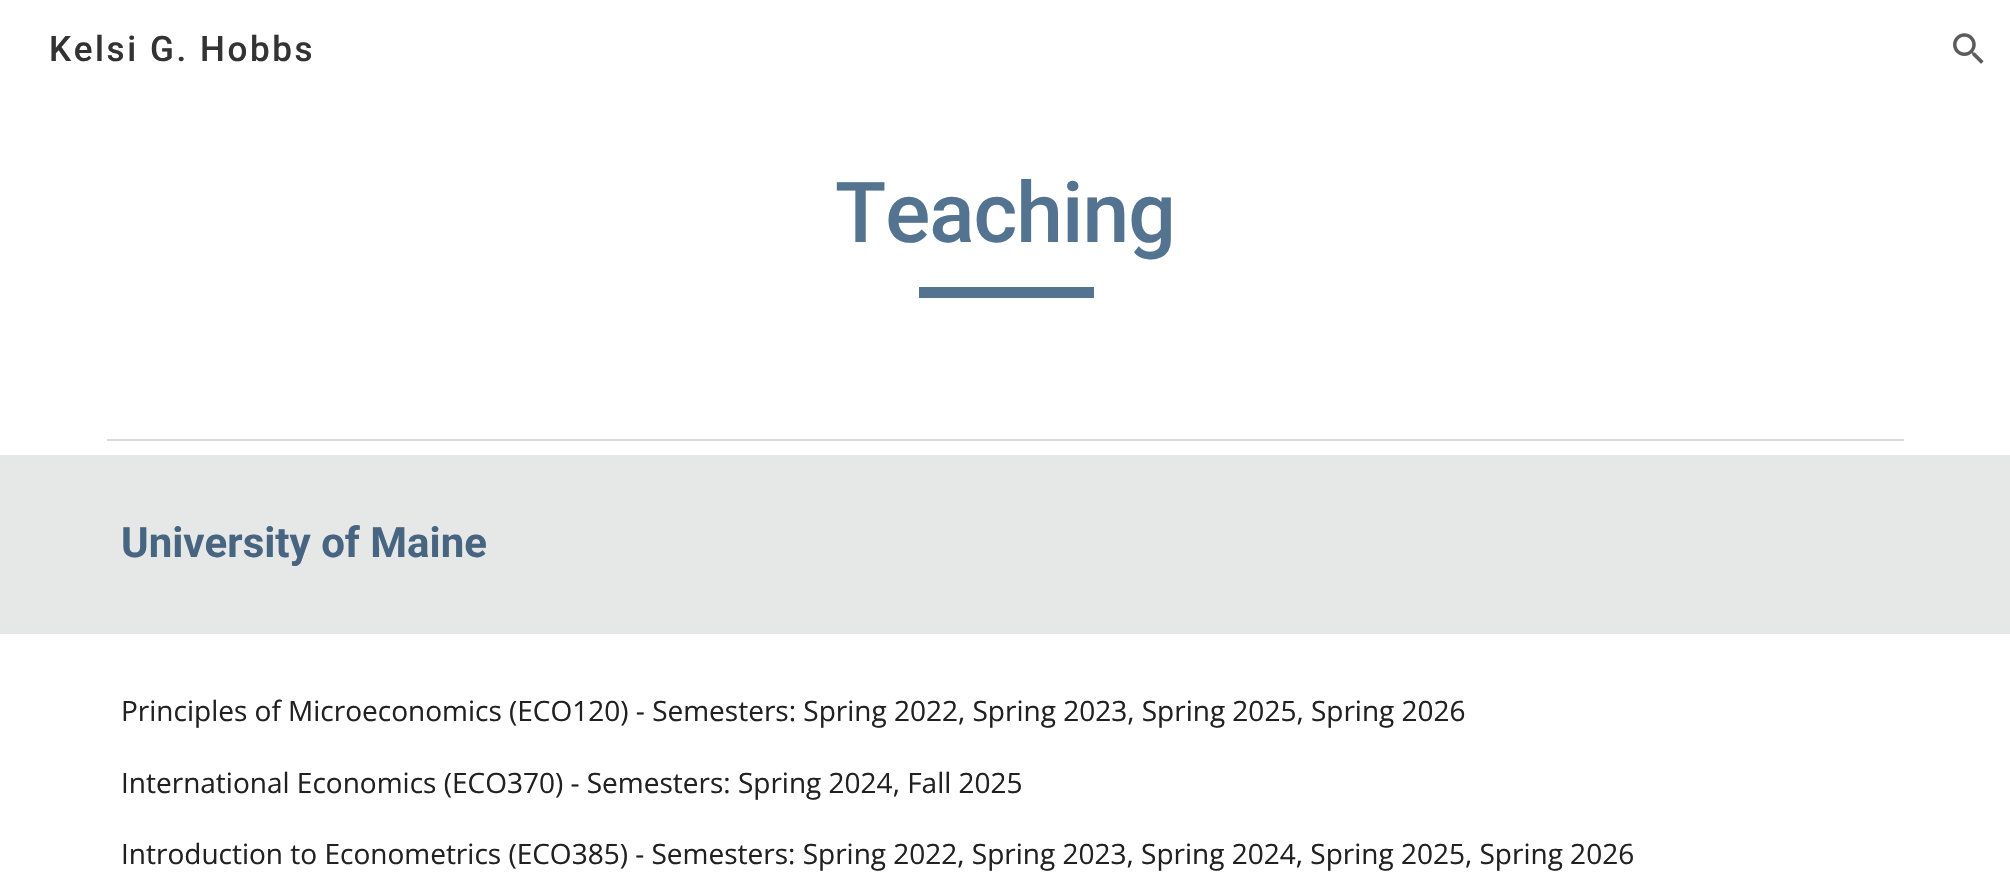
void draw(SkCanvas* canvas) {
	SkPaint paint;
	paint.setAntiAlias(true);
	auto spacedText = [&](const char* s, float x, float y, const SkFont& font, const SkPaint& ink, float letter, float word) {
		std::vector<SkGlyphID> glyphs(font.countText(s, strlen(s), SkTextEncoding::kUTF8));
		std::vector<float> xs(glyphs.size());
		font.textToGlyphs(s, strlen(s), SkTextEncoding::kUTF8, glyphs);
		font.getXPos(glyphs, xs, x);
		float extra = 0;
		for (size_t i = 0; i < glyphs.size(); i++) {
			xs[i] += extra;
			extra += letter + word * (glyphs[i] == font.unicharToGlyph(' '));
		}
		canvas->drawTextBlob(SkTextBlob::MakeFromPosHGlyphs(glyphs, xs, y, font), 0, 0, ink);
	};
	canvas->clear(0xffffffff);
	SkFont f1(fontMgr->matchFamilyStyle("Roboto", SkFontStyle(500, SkFontStyle::kNormal_Width, SkFontStyle::kUpright_Slant)), 35);
	f1.setSubpixel(true);
	paint.setColor(0xff333333);
	spacedText("Kelsi G. Hobbs", 49, 61, f1, paint, 2.6, 0);
	canvas->drawImageRect(SkImages::DeferredFromEncodedData(SkData::MakeFromFileName("img1.png")), SkRect::MakeXYWH(1953, 33, 31, 31), SkSamplingOptions());
	SkFont f2(fontMgr->matchFamilyStyle("Roboto", SkFontStyle(500, SkFontStyle::kNormal_Width, SkFontStyle::kUpright_Slant)), 84);
	f2.setSubpixel(true);
	paint.setColor(0xff537391);
	spacedText("Teaching", 835, 242, f2, paint, -1, 0);
	canvas->drawRect(SkRect::MakeXYWH(919, 287, 175, 11), paint);
	paint.setColor(0xffd9d9d9);
	canvas->drawRect(SkRect::MakeXYWH(107, 439, 1797, 2), paint);
	paint.setColor(0xffe6e7e7);
	canvas->drawRect(SkRect::MakeXYWH(0, 455, 2010, 179), paint);
	SkFont f3(fontMgr->matchFamilyStyle("Roboto", SkFontStyle::Bold()), 42);
	f3.setSubpixel(true);
	paint.setColor(0xff476581);
	canvas->drawString("University of Maine", 121, 557, f3, paint);
	SkFont f4(fontMgr->matchFamilyStyle("Open Sans", SkFontStyle::Normal()), 28);
	f4.setSubpixel(true);
	paint.setColor(0xff212121);
	canvas->drawString("Principles of Microeconomics (ECO120) - Semesters: Spring 2022, Spring 2023, Spring 2025, Spring 2026", 121, 721, f4, paint);
	canvas->drawString("International Economics (ECO370) - Semesters: Spring 2024, Fall 2025", 121, 793, f4, paint);
	canvas->drawString("Introduction to Econometrics (ECO385) - Semesters: Spring 2022, Spring 2023, Spring 2024, Spring 2025, Spring 2026", 121, 864, f4, paint);
}
